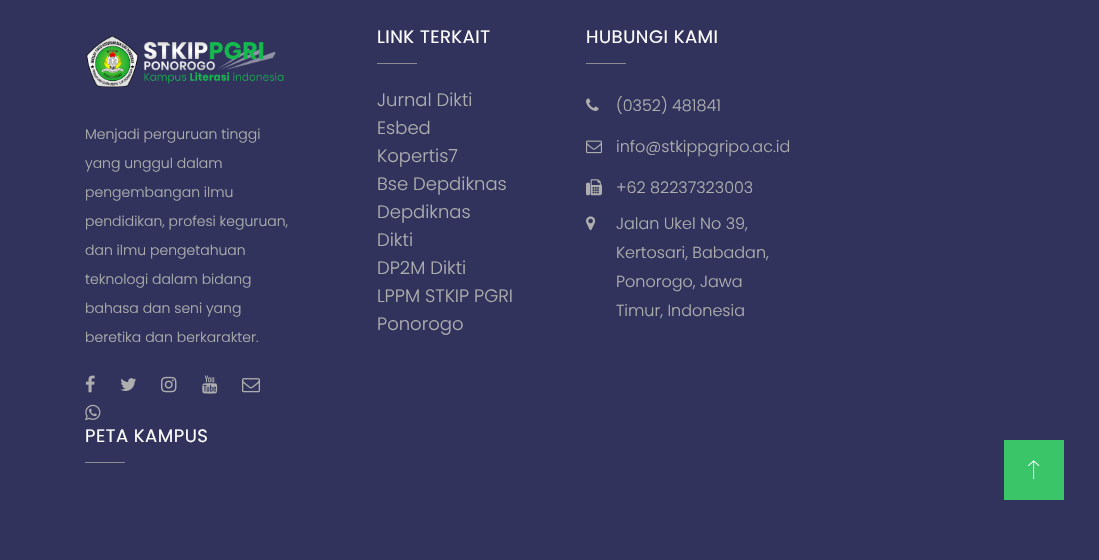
void draw(SkCanvas* canvas) {
	SkPaint paint;
	paint.setAntiAlias(true);
	auto spacedText = [&](const char* s, float x, float y, const SkFont& font, const SkPaint& ink, float letter, float word) {
		std::vector<SkGlyphID> glyphs(font.countText(s, strlen(s), SkTextEncoding::kUTF8));
		std::vector<float> xs(glyphs.size());
		font.textToGlyphs(s, strlen(s), SkTextEncoding::kUTF8, glyphs);
		font.getXPos(glyphs, xs, x);
		float extra = 0;
		for (size_t i = 0; i < glyphs.size(); i++) {
			xs[i] += extra;
			extra += letter + word * (glyphs[i] == font.unicharToGlyph(' '));
		}
		canvas->drawTextBlob(SkTextBlob::MakeFromPosHGlyphs(glyphs, xs, y, font), 0, 0, ink);
	};
	canvas->clear(0xff31335d);
	canvas->drawImageRect(SkImages::DeferredFromEncodedData(SkData::MakeFromFileName("img1.png")), SkRect::MakeXYWH(86, 35, 198, 53), SkSamplingOptions());
	SkFont f1(fontMgr->matchFamilyStyle("Poppins", SkFontStyle(300, SkFontStyle::kNormal_Width, SkFontStyle::kUpright_Slant)), 14);
	f1.setSubpixel(true);
	paint.setColor(0xffaeaeae);
	canvas->drawString("Menjadi perguruan tinggi", 85, 139, f1, paint);
	canvas->drawString("yang unggul dalam", 85, 168, f1, paint);
	canvas->drawString("pengembangan ilmu", 85, 197, f1, paint);
	canvas->drawString("pendidikan, profesi keguruan,", 85, 226, f1, paint);
	canvas->drawString("dan ilmu pengetahuan", 85, 255, f1, paint);
	canvas->drawString("teknologi dalam bidang", 85, 284, f1, paint);
	canvas->drawString("bahasa dan seni yang", 85, 313, f1, paint);
	canvas->drawString("beretika dan berkarakter.", 85, 342, f1, paint);
	canvas->drawImageRect(SkImages::DeferredFromEncodedData(SkData::MakeFromFileName("img2.png")), SkRect::MakeXYWH(85, 375, 10, 18), SkSamplingOptions());
	canvas->drawImageRect(SkImages::DeferredFromEncodedData(SkData::MakeFromFileName("img3.png")), SkRect::MakeXYWH(120, 378, 17, 13), SkSamplingOptions());
	canvas->drawImageRect(SkImages::DeferredFromEncodedData(SkData::MakeFromFileName("img4.png")), SkRect::MakeXYWH(161, 376, 16, 17), SkSamplingOptions());
	canvas->drawImageRect(SkImages::DeferredFromEncodedData(SkData::MakeFromFileName("img5.png")), SkRect::MakeXYWH(202, 375, 16, 19), SkSamplingOptions());
	canvas->drawImageRect(SkImages::DeferredFromEncodedData(SkData::MakeFromFileName("img6.png")), SkRect::MakeXYWH(242, 378, 18, 15), SkSamplingOptions());
	canvas->drawImageRect(SkImages::DeferredFromEncodedData(SkData::MakeFromFileName("img7.png")), SkRect::MakeXYWH(85, 404, 16, 17), SkSamplingOptions());
	SkFont f2(fontMgr->matchFamilyStyle("Poppins", SkFontStyle::Normal()), 18);
	f2.setSubpixel(true);
	paint.setColor(0xffffffff);
	spacedText("LINK TERKAIT", 377, 43, f2, paint, 0.5, 0);
	paint.setColor(0xff8a8a91);
	canvas->drawRect(SkRect::MakeXYWH(377, 63, 40, 1), paint);
	SkFont f3(fontMgr->matchFamilyStyle("Poppins", SkFontStyle(300, SkFontStyle::kNormal_Width, SkFontStyle::kUpright_Slant)), 18);
	f3.setSubpixel(true);
	paint.setColor(0xffaeaeae);
	canvas->drawString("Jurnal Dikti", 377, 106, f3, paint);
	canvas->drawString("Esbed", 377, 134, f3, paint);
	canvas->drawString("Kopertis7", 377, 162, f3, paint);
	canvas->drawString("Bse Depdiknas", 377, 190, f3, paint);
	canvas->drawString("Depdiknas", 377, 218, f3, paint);
	canvas->drawString("Dikti", 377, 246, f3, paint);
	canvas->drawString("DP2M Dikti", 377, 274, f3, paint);
	canvas->drawString("LPPM STKIP PGRI", 377, 302, f3, paint);
	canvas->drawString("Ponorogo", 377, 330, f3, paint);
	paint.setColor(0xffffffff);
	spacedText("HUBUNGI KAMI", 586, 43, f2, paint, 0.5, 0);
	paint.setColor(0xff8a8a91);
	canvas->drawRect(SkRect::MakeXYWH(586, 63, 40, 1), paint);
	canvas->drawImageRect(SkImages::DeferredFromEncodedData(SkData::MakeFromFileName("img8.png")), SkRect::MakeXYWH(586, 98, 13, 13), SkSamplingOptions());
	SkFont f4(fontMgr->matchFamilyStyle("Poppins", SkFontStyle(300, SkFontStyle::kNormal_Width, SkFontStyle::kUpright_Slant)), 16);
	f4.setSubpixel(true);
	paint.setColor(0xffaeaeae);
	canvas->drawString("(0352) 481841", 616, 111, f4, paint);
	canvas->drawImageRect(SkImages::DeferredFromEncodedData(SkData::MakeFromFileName("img9.png")), SkRect::MakeXYWH(586, 140, 16, 14), SkSamplingOptions());
	canvas->drawString("info@stkippgripo.ac.id", 616, 152, f4, paint);
	canvas->drawImageRect(SkImages::DeferredFromEncodedData(SkData::MakeFromFileName("img10.png")), SkRect::MakeXYWH(586, 179, 16, 17), SkSamplingOptions());
	canvas->drawString("+62 82237323003", 616, 193, f4, paint);
	canvas->drawImageRect(SkImages::DeferredFromEncodedData(SkData::MakeFromFileName("img11.png")), SkRect::MakeXYWH(586, 216, 10, 15), SkSamplingOptions());
	canvas->drawString("Jalan Ukel No 39,", 616, 229, f4, paint);
	canvas->drawString("Kertosari, Babadan,", 616, 258, f4, paint);
	canvas->drawString("Ponorogo, Jawa", 616, 287, f4, paint);
	canvas->drawString("Timur, Indonesia", 616, 316, f4, paint);
	paint.setColor(0xffffffff);
	spacedText("PETA KAMPUS", 85, 442, f2, paint, 0.5, 0);
	paint.setColor(0xff8a8a91);
	canvas->drawRect(SkRect::MakeXYWH(85, 462, 40, 1), paint);
	paint.setColor(0xff3ac569);
	canvas->drawRect(SkRect::MakeXYWH(1004, 440, 60, 60), paint);
	canvas->drawImageRect(SkImages::DeferredFromEncodedData(SkData::MakeFromFileName("img12.png")), SkRect::MakeXYWH(1028, 460, 12, 20), SkSamplingOptions());
}
